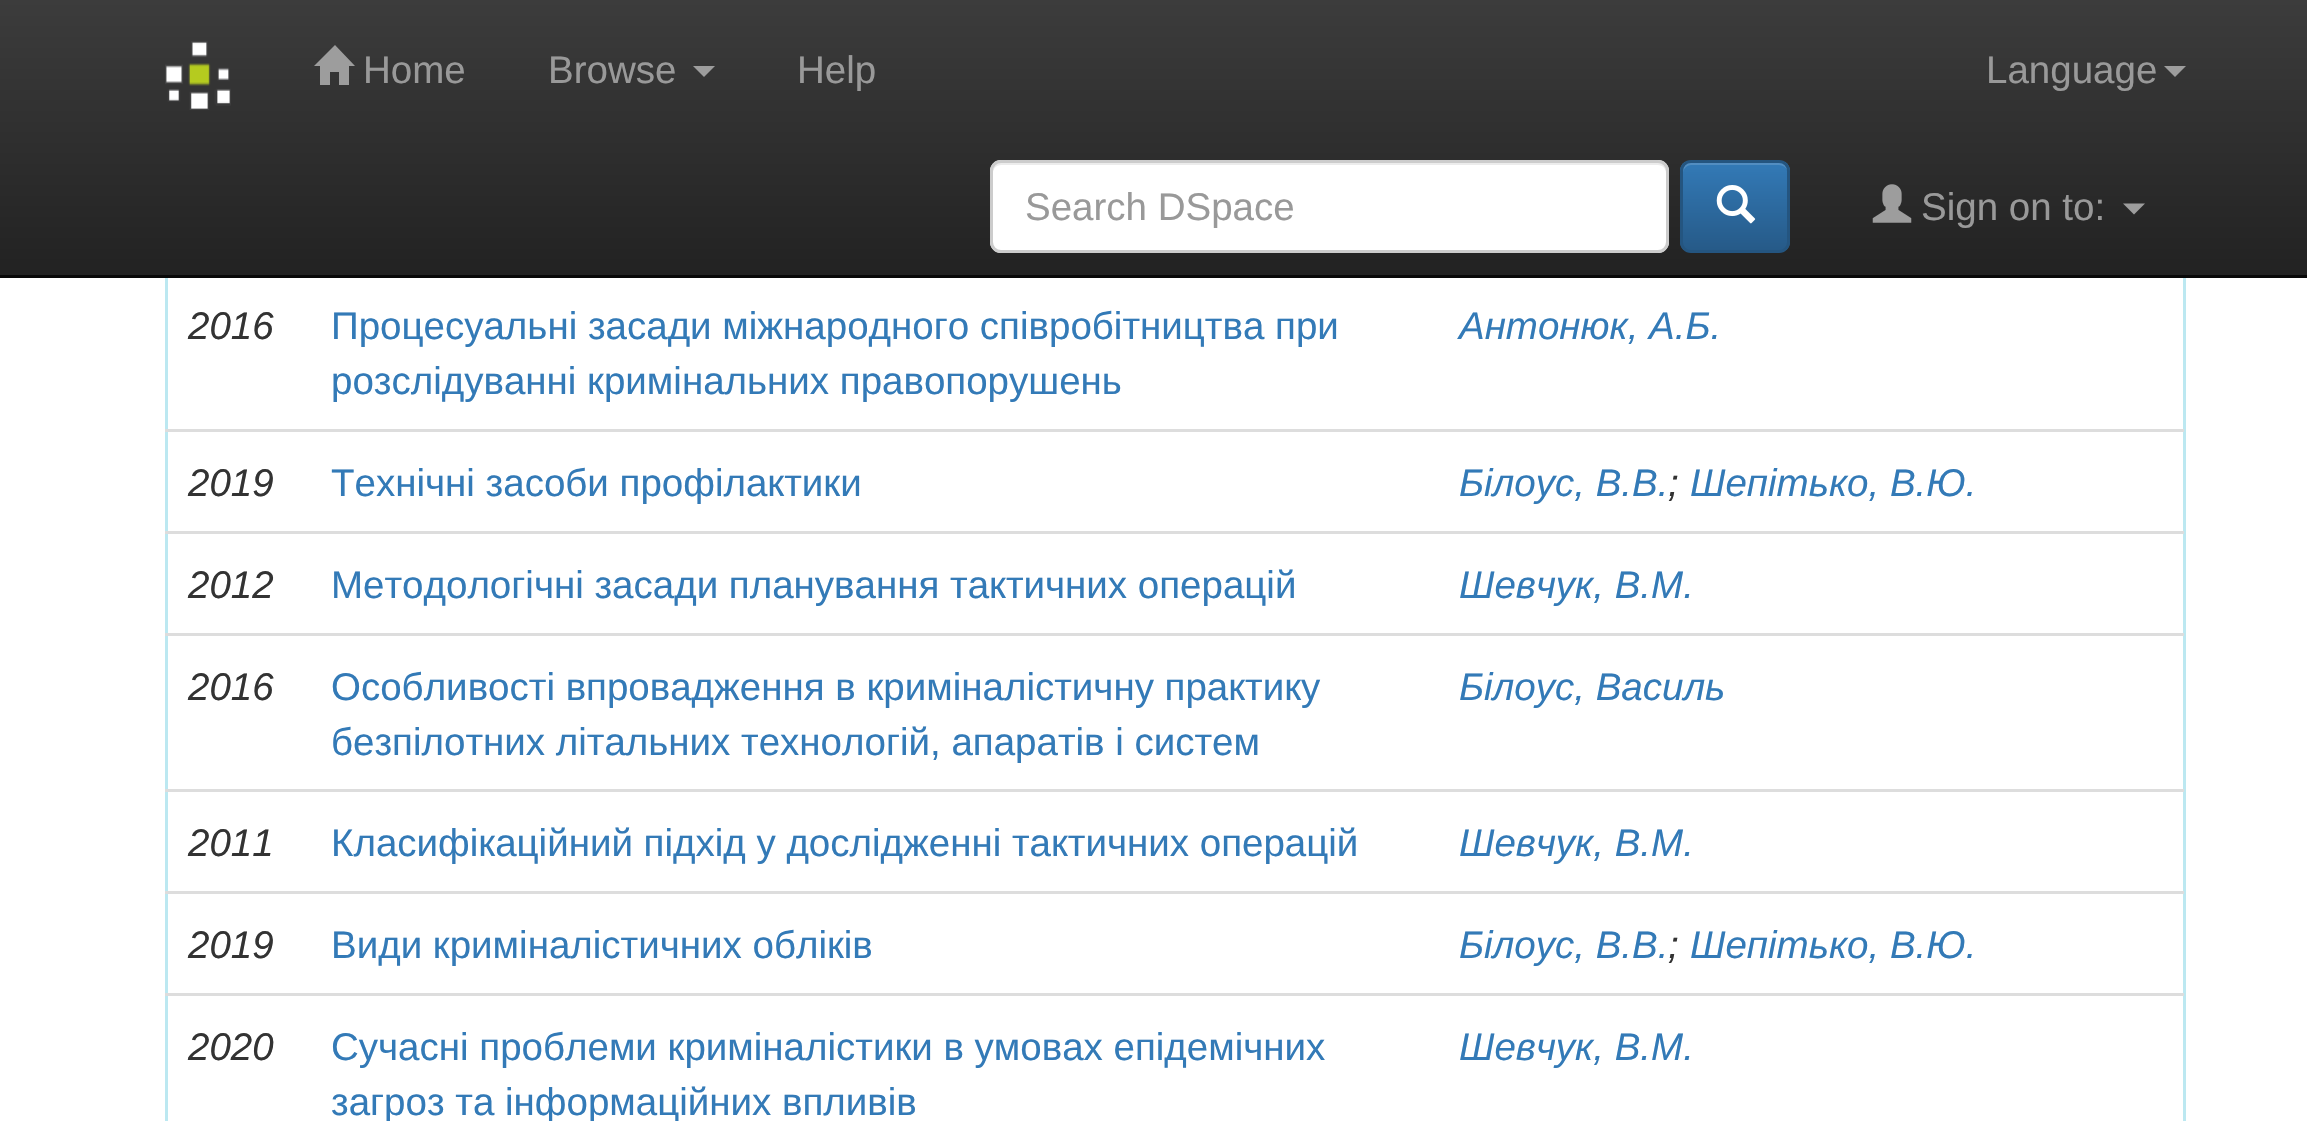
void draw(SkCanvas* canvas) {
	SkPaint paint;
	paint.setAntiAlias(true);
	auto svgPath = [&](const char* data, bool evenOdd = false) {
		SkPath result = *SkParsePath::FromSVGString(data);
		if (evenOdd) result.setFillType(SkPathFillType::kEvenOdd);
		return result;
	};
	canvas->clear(0xffffffff);
	paint.setStroke(true);
	paint.setStrokeWidth(3);
	paint.setColor(0xffbce8f1);
	canvas->drawRect(SkRect::MakeXYWH(166.5, 1.5, 2018, 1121), paint);
	paint.setStroke(false);
	{
		const SkColor colors[] = {0xff3c3c3c, 0xff222222};
		const float stops[] = {0, 1};
		const SkPoint ends[] = {{1154, 0}, {1154, 275}};
		paint.setShader(SkGradientShader::MakeLinear(ends, colors, stops, 2, SkTileMode::kClamp));
		paint.setAlpha(255);
	}
	canvas->drawRect(SkRect::MakeXYWH(0, 0, 2307, 275), paint);
	paint.setShader(nullptr);
	paint.setColor(0xff080808);
	canvas->drawRect(SkRect::MakeXYWH(0, 275, 2307, 3), paint);
	canvas->drawImageRect(SkImages::DeferredFromEncodedData(SkData::MakeFromFileName("img1.png")), SkRect::MakeXYWH(165, 41, 66, 69), SkSamplingOptions());
	paint.setColor(0xff9d9d9d);
	canvas->drawPath(svgPath("M355 66H349V85H339V72H330V85H320V66H314L335 45Z"), paint);
	SkFont f1(fontMgr->matchFamilyStyle("Liberation Sans", SkFontStyle::Normal()), 38.5);
	f1.setSubpixel(true);
	paint.setColor(0xff999999);
	canvas->drawString("Home", 363, 83, f1, paint);
	canvas->drawString("Browse", 548, 83, f1, paint);
	paint.setColor(0xff9d9d9d);
	canvas->drawPath(svgPath("M693 66H715L704 77Z"), paint);
	paint.setColor(0xff999999);
	canvas->drawString("Help", 797, 83, f1, paint);
	canvas->drawString("Language", 1986, 83, f1, paint);
	paint.setColor(0xff9d9d9d);
	canvas->drawPath(svgPath("M2164 66H2186L2175 77Z"), paint);
	paint.setColor(0xffffffff);
	canvas->drawRoundRect(SkRect::MakeXYWH(990, 160, 679, 93), 11, 11, paint);
	paint.setColor(0xffececec);
	canvas->drawPath(svgPath("M1001 165H1658C1663 165 1666 169 1666 173V246C1667 245 1667 243 1667 242V170C1667 166 1663 162 1659 162H1001C997 162 993 166 993 170V173C993 169 996 165 1001 165Z"), paint);
	paint.setStroke(true);
	paint.setColor(0xffcccccc);
	canvas->drawRoundRect(SkRect::MakeXYWH(991.5, 161.5, 676, 90), 9.5, 9.5, paint);
	paint.setStroke(false);
	paint.setColor(0xff999999);
	canvas->drawString("Search DSpace", 1025, 220, f1, paint);
	canvas->save();
	canvas->clipPath(svgPath("M1691 160H1779C1785 160 1790 165 1790 171V242C1790 248 1785 253 1779 253H1691C1685 253 1680 248 1680 242V171C1680 165 1685 160 1691 160Z"), true);
	{
		const SkColor colors[] = {0xff337ab7, 0xff265a88};
		const float stops[] = {0, 1};
		const SkPoint ends[] = {{1735, 162}, {1735, 250}};
		paint.setShader(SkGradientShader::MakeLinear(ends, colors, stops, 2, SkTileMode::kClamp));
		paint.setAlpha(255);
	}
	canvas->drawRect(SkRect::MakeXYWH(1680, 162, 110, 88), paint);
	canvas->restore();
	paint.setShader(nullptr);
	paint.setColor(0x26ffffff);
	canvas->drawPath(svgPath("M1691 165H1779C1784 165 1788 169 1788 173C1788 159 1777 162 1765 162H1706C1694 162 1683 159 1683 173C1683 169 1687 165 1691 165Z"), paint);
	paint.setStroke(true);
	paint.setColor(0xff245580);
	canvas->drawRoundRect(SkRect::MakeXYWH(1681.5, 161.5, 107, 90), 9.5, 9.5, paint);
	canvas->drawImageRect(SkImages::DeferredFromEncodedData(SkData::MakeFromFileName("img2.png")), SkRect::MakeXYWH(1716, 185, 40, 39), SkSamplingOptions());
	canvas->drawImageRect(SkImages::DeferredFromEncodedData(SkData::MakeFromFileName("img3.png")), SkRect::MakeXYWH(1872, 184, 40, 39), SkSamplingOptions());
	paint.setStroke(false);
	paint.setColor(0xff999999);
	canvas->drawString("Sign on to:", 1921, 220, f1, paint);
	paint.setColor(0xff9d9d9d);
	canvas->drawPath(svgPath("M2123 203.5H2145L2134 214.5Z"), paint);
	SkFont f2(fontMgr->matchFamilyStyle("Liberation Sans", SkFontStyle::Italic()), 38.5);
	f2.setSubpixel(true);
	paint.setColor(0xff333333);
	canvas->drawString("2016", 188, 339, f2, paint);
	paint.setColor(0xff337ab7);
	canvas->drawString("Процесуальні засади міжнародного співробітництва при", 331, 339, f1, paint);
	canvas->drawString("розслідуванні кримінальних правопорушень", 331, 394, f1, paint);
	canvas->drawString("Антонюк, А.Б.", 1459, 339, f2, paint);
	paint.setColor(0xff333333);
	canvas->drawString("2019", 188, 496, f2, paint);
	paint.setColor(0xff337ab7);
	canvas->drawString("Технічні засоби профілактики", 331, 496, f1, paint);
	paint.setColor(0xffdddddd);
	canvas->drawRect(SkRect::MakeXYWH(165, 429, 2019, 3), paint);
	paint.setColor(0xff337ab7);
	canvas->drawString("Білоус, В.В.", 1459, 496, f2, paint);
	paint.setColor(0xff333333);
	canvas->drawString(";", 1668, 496, f2, paint);
	paint.setColor(0xff337ab7);
	canvas->drawString("Шепітько, В.Ю.", 1690, 496, f2, paint);
	paint.setColor(0xff333333);
	canvas->drawString("2012", 188, 598, f2, paint);
	paint.setColor(0xff337ab7);
	canvas->drawString("Методологічні засади планування тактичних операцій", 331, 598, f1, paint);
	paint.setColor(0xffdddddd);
	canvas->drawRect(SkRect::MakeXYWH(165, 531, 2019, 3), paint);
	paint.setColor(0xff337ab7);
	canvas->drawString("Шевчук, В.М.", 1459, 598, f2, paint);
	paint.setColor(0xff333333);
	canvas->drawString("2016", 188, 700, f2, paint);
	paint.setColor(0xff337ab7);
	canvas->drawString("Особливості впровадження в криміналістичну практику", 331, 700, f1, paint);
	canvas->drawString("безпілотних літальних технологій, апаратів і систем", 331, 755, f1, paint);
	paint.setColor(0xffdddddd);
	canvas->drawRect(SkRect::MakeXYWH(165, 633, 2019, 3), paint);
	paint.setColor(0xff337ab7);
	canvas->drawString("Білоус, Василь", 1459, 700, f2, paint);
	paint.setColor(0xff333333);
	canvas->drawString("2011", 188, 856, f2, paint);
	paint.setColor(0xff337ab7);
	canvas->drawString("Класифікаційний підхід у дослідженні тактичних операцій", 331, 856, f1, paint);
	paint.setColor(0xffdddddd);
	canvas->drawRect(SkRect::MakeXYWH(165, 789, 2019, 3), paint);
	paint.setColor(0xff337ab7);
	canvas->drawString("Шевчук, В.М.", 1459, 856, f2, paint);
	paint.setColor(0xff333333);
	canvas->drawString("2019", 188, 958, f2, paint);
	paint.setColor(0xff337ab7);
	canvas->drawString("Види криміналістичних обліків", 331, 958, f1, paint);
	paint.setColor(0xffdddddd);
	canvas->drawRect(SkRect::MakeXYWH(165, 891, 2019, 3), paint);
	paint.setColor(0xff337ab7);
	canvas->drawString("Білоус, В.В.", 1459, 958, f2, paint);
	paint.setColor(0xff333333);
	canvas->drawString(";", 1668, 958, f2, paint);
	paint.setColor(0xff337ab7);
	canvas->drawString("Шепітько, В.Ю.", 1690, 958, f2, paint);
	paint.setColor(0xff333333);
	canvas->drawString("2020", 188, 1060, f2, paint);
	paint.setColor(0xff337ab7);
	canvas->drawString("Сучасні проблеми криміналістики в умовах епідемічних", 331, 1060, f1, paint);
	canvas->drawString("загроз та інформаційних впливів", 331, 1115, f1, paint);
	paint.setColor(0xffdddddd);
	canvas->drawRect(SkRect::MakeXYWH(165, 993, 2019, 3), paint);
	paint.setColor(0xff337ab7);
	canvas->drawString("Шевчук, В.М.", 1459, 1060, f2, paint);
}
